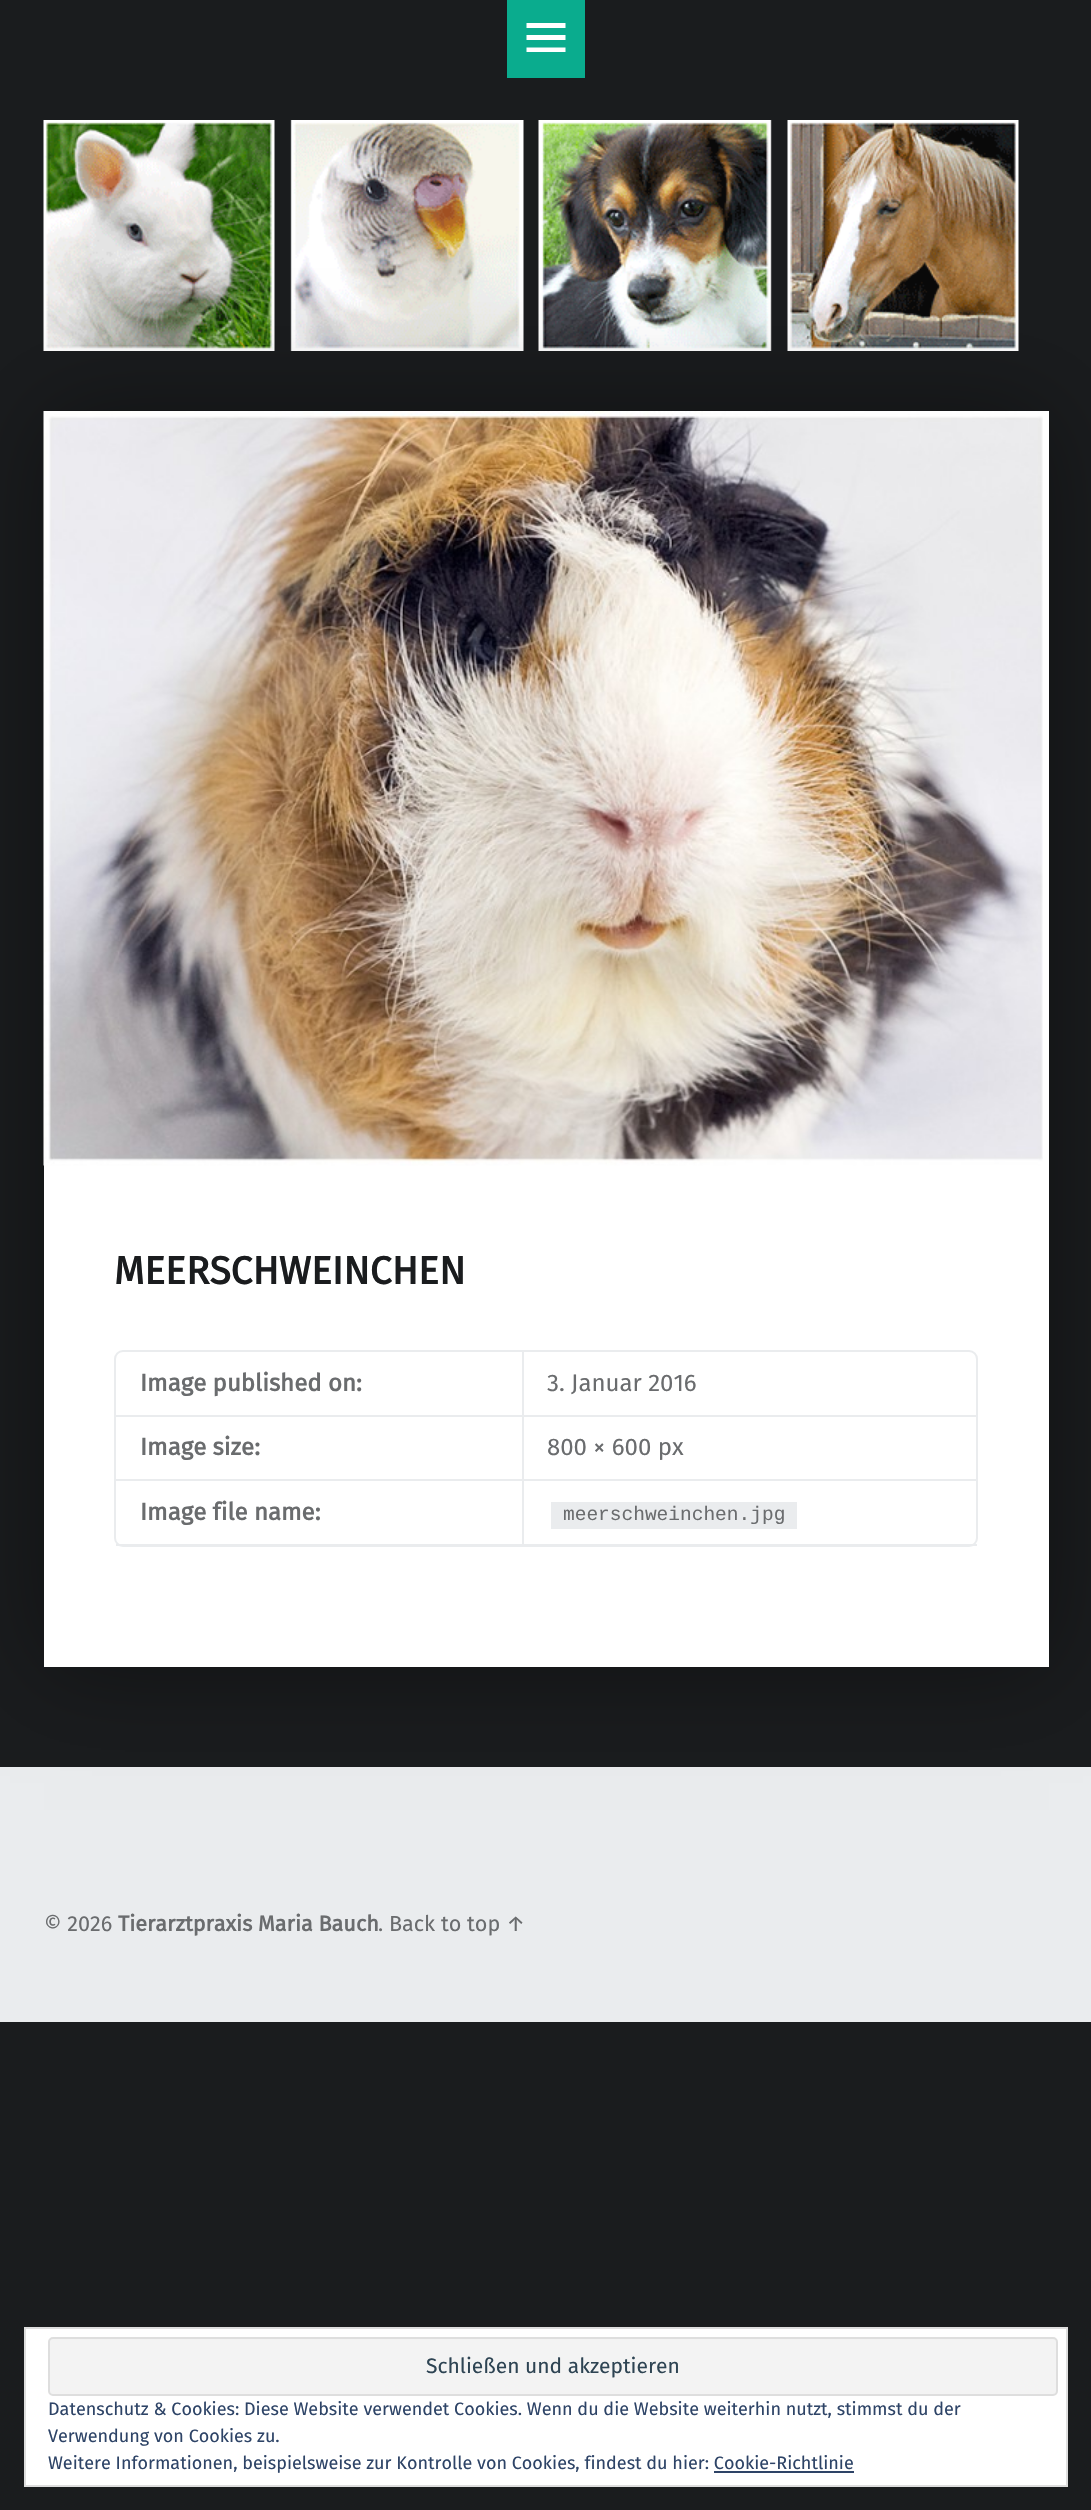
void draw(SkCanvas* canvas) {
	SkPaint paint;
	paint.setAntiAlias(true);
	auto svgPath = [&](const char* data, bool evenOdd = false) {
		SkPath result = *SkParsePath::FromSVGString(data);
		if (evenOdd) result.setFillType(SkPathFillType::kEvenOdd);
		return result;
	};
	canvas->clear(0xff1a1c1e);
	paint.setColor(0xff0aac8e);
	canvas->drawRect(SkRect::MakeXYWH(507, 0, 78, 78), paint);
	paint.setColor(0xffffffff);
	canvas->drawPath(svgPath("M526.5 52V47.5H565.5V52ZM526.5 23H565.5V28H526.5ZM526.5 40V35H565.5V40Z"), paint);
	canvas->drawImageRect(SkImages::DeferredFromEncodedData(SkData::MakeFromFileName("img1.png")), SkRect::MakeXYWH(43, 120, 976, 231), SkSamplingOptions());
	paint.setColor(0xffeaecee);
	canvas->drawRect(SkRect::MakeXYWH(0, 1767, 1091, 255), paint);
	paint.setColor(0x66000000);
	paint.setMaskFilter(SkMaskFilter::MakeBlur(kNormal_SkBlurStyle, 48));
	canvas->drawRect(SkRect::MakeXYWH(44, 411, 1005, 1256), paint);
	paint.setMaskFilter(nullptr);
	paint.setColor(0xffffffff);
	canvas->drawRect(SkRect::MakeXYWH(44, 411, 1005, 1256), paint);
	canvas->drawImageRect(SkImages::DeferredFromEncodedData(SkData::MakeFromFileName("img2.png")), SkRect::MakeXYWH(43, 411, 1000, 755), SkSamplingOptions());
	SkFont f1(fontMgr->matchFamilyStyle("Fira Sans", SkFontStyle::Bold()), 38.9);
	f1.setSubpixel(true);
	paint.setColor(0xff1a1c1e);
	canvas->drawString("MEERSCHWEINCHEN", 114, 1284, f1, paint);
	paint.setStroke(true);
	paint.setStrokeWidth(2);
	paint.setColor(0xffeaecee);
	canvas->drawRoundRect(SkRect::MakeXYWH(115, 1351, 862, 195), 8, 8, paint);
	paint.setStroke(false);
	canvas->drawRect(SkRect::MakeXYWH(116, 1415, 861, 2), paint);
	SkFont f2(fontMgr->matchFamilyStyle("Fira Sans", SkFontStyle::Bold()), 24);
	f2.setSubpixel(true);
	paint.setColor(0xff6a6c6e);
	canvas->drawString("Image published on:", 140, 1391, f2, paint);
	paint.setColor(0xffeaecee);
	canvas->drawRect(SkRect::MakeXYWH(522, 1352, 2, 64), paint);
	SkFont f3(fontMgr->matchFamilyStyle("Fira Sans", SkFontStyle::Normal()), 24);
	f3.setSubpixel(true);
	paint.setColor(0xff6a6c6e);
	canvas->drawString("3. Januar 2016", 547, 1391, f3, paint);
	paint.setColor(0xffeaecee);
	canvas->drawRect(SkRect::MakeXYWH(116, 1479, 861, 2), paint);
	paint.setColor(0xff6a6c6e);
	canvas->drawString("Image size:", 140, 1455, f2, paint);
	paint.setColor(0xffeaecee);
	canvas->drawRect(SkRect::MakeXYWH(522, 1416, 2, 65), paint);
	paint.setColor(0xff6a6c6e);
	canvas->drawString("800 × 600 px", 547, 1455, f3, paint);
	paint.setColor(0xffeaecee);
	canvas->drawRect(SkRect::MakeXYWH(116, 1544, 861, 2), paint);
	paint.setColor(0xff6a6c6e);
	canvas->drawString("Image file name:", 140, 1520, f2, paint);
	paint.setColor(0xffeaecee);
	canvas->drawRect(SkRect::MakeXYWH(522, 1481, 2, 64), paint);
	canvas->drawRect(SkRect::MakeXYWH(551, 1502, 246, 27), paint);
	SkFont f4(fontMgr->matchFamilyStyle("Liberation Mono", SkFontStyle::Normal()), 19.5);
	f4.setSubpixel(true);
	paint.setColor(0xff6a6c6e);
	canvas->drawString("meerschweinchen.jpg", 563, 1520, f4, paint);
	SkFont f5(fontMgr->matchFamilyStyle("Fira Sans", SkFontStyle::Normal()), 21.6);
	f5.setSubpixel(true);
	canvas->drawString("© 2026", 44, 1931, f5, paint);
	SkFont f6(fontMgr->matchFamilyStyle("Fira Sans", SkFontStyle::Bold()), 21.6);
	f6.setSubpixel(true);
	canvas->drawString("Tierarztpraxis Maria Bauch", 118, 1931, f6, paint);
	canvas->drawString(". Back to top ↑", 378, 1931, f5, paint);
	paint.setColor(0xffffffff);
	canvas->drawRect(SkRect::MakeXYWH(25, 2328, 1042, 158), paint);
	paint.setStroke(true);
	paint.setColor(0xffdedede);
	canvas->drawRect(SkRect::MakeXYWH(25, 2328, 1042, 158), paint);
	paint.setStroke(false);
	paint.setColor(0xfff3f3f3);
	canvas->drawRoundRect(SkRect::MakeXYWH(49, 2338, 1008, 57), 4, 4, paint);
	paint.setStroke(true);
	paint.setColor(0xffdedede);
	canvas->drawRoundRect(SkRect::MakeXYWH(49, 2338, 1008, 57), 4, 4, paint);
	SkFont f7(fontMgr->matchFamilyStyle("Fira Sans", SkFontStyle::Normal()), 21);
	f7.setSubpixel(true);
	paint.setStroke(false);
	paint.setColor(0xff2e4453);
	canvas->drawString("Schließen und akzeptieren", 426, 2373, f7, paint);
	SkFont f8(fontMgr->matchFamilyStyle("Fira Sans", SkFontStyle::Normal()), 18);
	f8.setSubpixel(true);
	paint.setColor(0xff2e4467);
	canvas->drawString("Datenschutz & Cookies: Diese Website verwendet Cookies. Wenn du die Website weiterhin nutzt, stimmst du der", 48, 2415, f8, paint);
	canvas->drawString("Verwendung von Cookies zu.", 48, 2442, f8, paint);
	canvas->drawString("Weitere Informationen, beispielsweise zur Kontrolle von Cookies, findest du hier: Cookie-Richtlinie", 48, 2469, f8, paint);
	canvas->drawRect(SkRect::MakeXYWH(714, 2471, 140, 2), paint);
}
